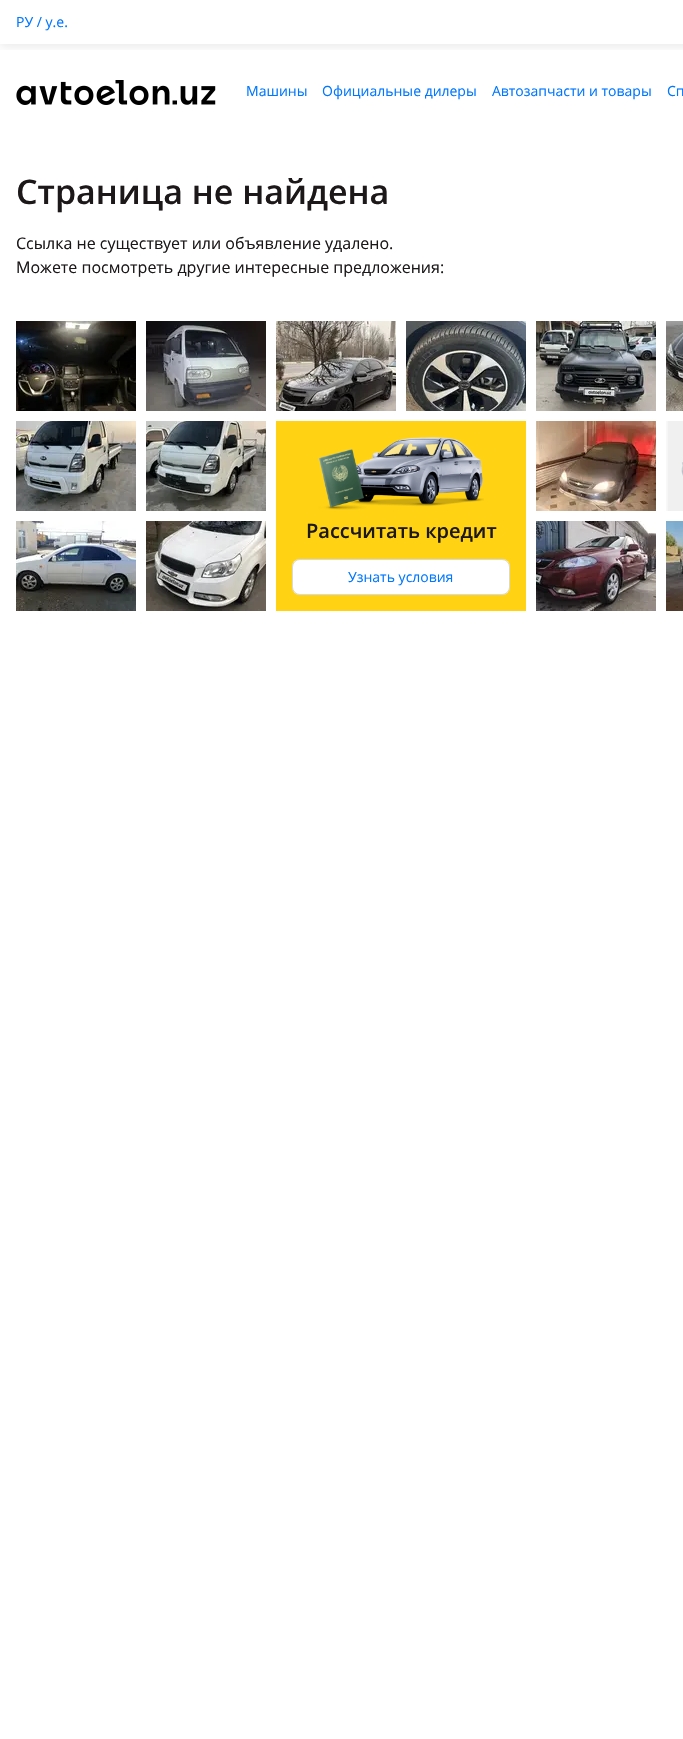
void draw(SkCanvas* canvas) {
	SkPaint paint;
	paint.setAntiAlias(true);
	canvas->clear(0xffffffff);
	canvas->save();
	canvas->clipRect(SkRect::MakeXYWH(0, 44, 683, 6));
	paint.setColor(0x1a1c1819);
	paint.setMaskFilter(SkMaskFilter::MakeBlur(kNormal_SkBlurStyle, 5));
	canvas->drawRect(SkRect::MakeXYWH(0, 2, 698, 44), paint);
	paint.setMaskFilter(nullptr);
	canvas->restore();
	SkFont f1(fontMgr->matchFamilyStyle("Open Sans", SkFontStyle::Normal()), 14);
	f1.setSubpixel(true);
	paint.setColor(0xff0077ff);
	canvas->drawString("РУ / у.е.", 16, 27, f1, paint);
	canvas->drawImageRect(SkImages::DeferredFromEncodedData(SkData::MakeFromFileName("img1.png")), SkRect::MakeXYWH(16, 80, 200, 25), SkSamplingOptions());
	canvas->drawString("Машины", 246, 96, f1, paint);
	canvas->drawString("Официальные дилеры", 322, 96, f1, paint);
	canvas->drawString("Автозапчасти и товары", 492, 96, f1, paint);
	canvas->drawString("Сп", 667, 96, f1, paint);
	SkFont f2(fontMgr->matchFamilyStyle("Open Sans", SkFontStyle(600, SkFontStyle::kNormal_Width, SkFontStyle::kUpright_Slant)), 34);
	f2.setSubpixel(true);
	paint.setColor(0xff1c1819);
	canvas->drawString("Страница не найдена", 16, 204, f2, paint);
	SkFont f3(fontMgr->matchFamilyStyle("Open Sans", SkFontStyle::Normal()), 16);
	f3.setSubpixel(true);
	canvas->drawString("Cсылка не существует или объявление удалено.", 16, 249, f3, paint);
	canvas->drawString("Можете посмотреть другие интересные предложения:", 16, 273, f3, paint);
	canvas->drawImageRect(SkImages::DeferredFromEncodedData(SkData::MakeFromFileName("img2.png")), SkRect::MakeXYWH(16, 321, 120, 90), SkSamplingOptions());
	canvas->drawImageRect(SkImages::DeferredFromEncodedData(SkData::MakeFromFileName("img3.png")), SkRect::MakeXYWH(146, 321, 120, 90), SkSamplingOptions());
	canvas->drawImageRect(SkImages::DeferredFromEncodedData(SkData::MakeFromFileName("img4.png")), SkRect::MakeXYWH(276, 321, 120, 90), SkSamplingOptions());
	canvas->drawImageRect(SkImages::DeferredFromEncodedData(SkData::MakeFromFileName("img5.png")), SkRect::MakeXYWH(406, 321, 120, 90), SkSamplingOptions());
	canvas->drawImageRect(SkImages::DeferredFromEncodedData(SkData::MakeFromFileName("img6.png")), SkRect::MakeXYWH(536, 321, 120, 90), SkSamplingOptions());
	canvas->drawImageRect(SkImages::DeferredFromEncodedData(SkData::MakeFromFileName("img7.png")), SkRect::MakeXYWH(666, 321, 17, 90), SkSamplingOptions());
	canvas->drawImageRect(SkImages::DeferredFromEncodedData(SkData::MakeFromFileName("img8.png")), SkRect::MakeXYWH(16, 421, 120, 90), SkSamplingOptions());
	canvas->drawImageRect(SkImages::DeferredFromEncodedData(SkData::MakeFromFileName("img9.png")), SkRect::MakeXYWH(146, 421, 120, 90), SkSamplingOptions());
	canvas->drawImageRect(SkImages::DeferredFromEncodedData(SkData::MakeFromFileName("img10.png")), SkRect::MakeXYWH(536, 421, 120, 90), SkSamplingOptions());
	canvas->drawImageRect(SkImages::DeferredFromEncodedData(SkData::MakeFromFileName("img11.png")), SkRect::MakeXYWH(666, 421, 17, 90), SkSamplingOptions());
	canvas->drawImageRect(SkImages::DeferredFromEncodedData(SkData::MakeFromFileName("img12.png")), SkRect::MakeXYWH(16, 521, 120, 90), SkSamplingOptions());
	canvas->drawImageRect(SkImages::DeferredFromEncodedData(SkData::MakeFromFileName("img13.png")), SkRect::MakeXYWH(146, 521, 120, 90), SkSamplingOptions());
	paint.setColor(0xffffd313);
	canvas->drawRect(SkRect::MakeXYWH(276, 421, 250, 190), paint);
	canvas->drawImageRect(SkImages::DeferredFromEncodedData(SkData::MakeFromFileName("img14.png")), SkRect::MakeXYWH(318, 437, 166, 73), SkSamplingOptions());
	SkFont f4(fontMgr->matchFamilyStyle("Open Sans", SkFontStyle(600, SkFontStyle::kNormal_Width, SkFontStyle::kUpright_Slant)), 20);
	f4.setSubpixel(true);
	paint.setColor(0xff1c1819);
	canvas->drawString("Рассчитать кредит", 306, 538, f4, paint);
	paint.setColor(0xffffffff);
	canvas->drawRoundRect(SkRect::MakeXYWH(292, 559, 218, 36), 8, 8, paint);
	paint.setStroke(true);
	paint.setStrokeWidth(1);
	paint.setColor(0x3b505b71);
	canvas->drawRoundRect(SkRect::MakeXYWH(292.5, 559.5, 217, 35), 7.5, 7.5, paint);
	paint.setStroke(false);
	paint.setColor(0xff0077ff);
	canvas->drawString("Узнать условия", 348, 582, f1, paint);
	canvas->drawImageRect(SkImages::DeferredFromEncodedData(SkData::MakeFromFileName("img15.png")), SkRect::MakeXYWH(536, 521, 120, 90), SkSamplingOptions());
	canvas->drawImageRect(SkImages::DeferredFromEncodedData(SkData::MakeFromFileName("img16.png")), SkRect::MakeXYWH(666, 521, 17, 90), SkSamplingOptions());
}
